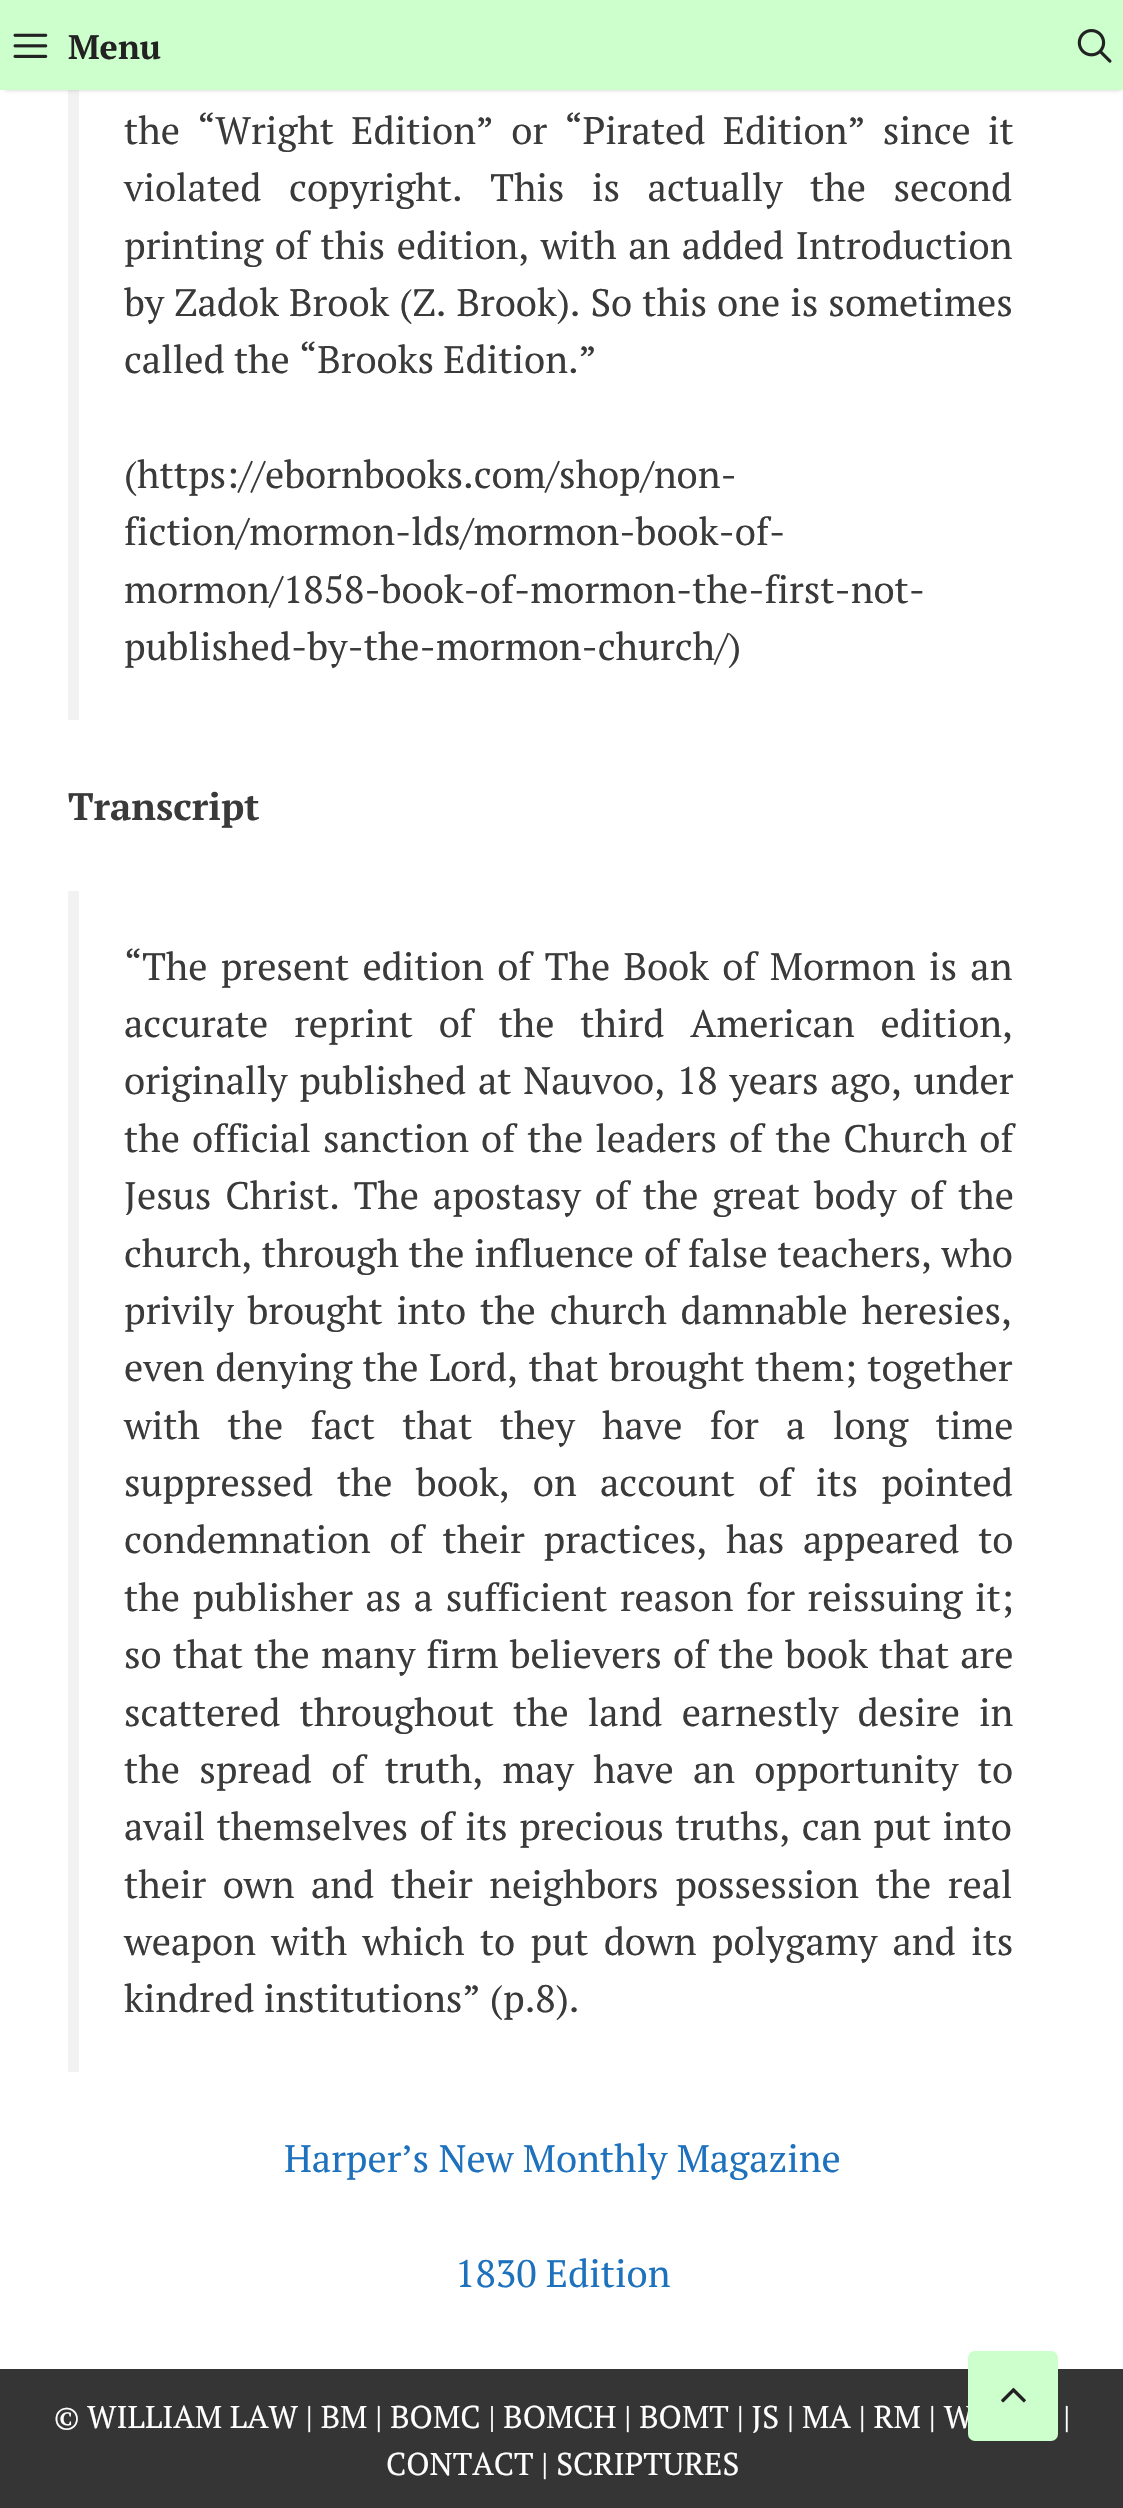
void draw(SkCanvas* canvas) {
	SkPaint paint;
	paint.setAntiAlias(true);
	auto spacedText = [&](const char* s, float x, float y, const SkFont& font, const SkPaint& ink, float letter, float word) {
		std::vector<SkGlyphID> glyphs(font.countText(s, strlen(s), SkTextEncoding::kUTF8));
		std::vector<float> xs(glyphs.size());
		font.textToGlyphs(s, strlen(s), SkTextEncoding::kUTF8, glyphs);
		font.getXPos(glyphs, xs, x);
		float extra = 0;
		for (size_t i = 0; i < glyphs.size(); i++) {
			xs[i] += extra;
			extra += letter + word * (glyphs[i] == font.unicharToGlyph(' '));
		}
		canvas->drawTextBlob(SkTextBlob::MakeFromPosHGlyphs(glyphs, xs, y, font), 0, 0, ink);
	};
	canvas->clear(0xffffffff);
	paint.setColor(0xfff2f2f2);
	canvas->drawRect(SkRect::MakeXYWH(68, 90, 11, 630), paint);
	paint.setColor(0x33000000);
	paint.setMaskFilter(SkMaskFilter::MakeBlur(kNormal_SkBlurStyle, 2));
	canvas->drawRect(SkRect::MakeXYWH(5, 9, 1116, 81), paint);
	paint.setMaskFilter(nullptr);
	paint.setColor(0xffccffcc);
	canvas->drawRect(SkRect::MakeXYWH(0, 0, 1123, 90), paint);
	canvas->drawImageRect(SkImages::DeferredFromEncodedData(SkData::MakeFromFileName("img1.png")), SkRect::MakeXYWH(13, 33, 35, 25), SkSamplingOptions());
	SkFont f1(fontMgr->matchFamilyStyle("PT Serif", SkFontStyle::Bold()), 34);
	f1.setSubpixel(true);
	paint.setColor(0xff222222);
	canvas->drawString("Menu", 68, 59, f1, paint);
	canvas->drawImageRect(SkImages::DeferredFromEncodedData(SkData::MakeFromFileName("img2.png")), SkRect::MakeXYWH(1077, 29, 35, 34), SkSamplingOptions());
	SkFont f2(fontMgr->matchFamilyStyle("PT Serif", SkFontStyle::Normal()), 38.25);
	f2.setSubpixel(true);
	paint.setColor(0xff3a3a3a);
	spacedText("the “Wright Edition” or “Pirated Edition” since it", 124, 144, f2, paint, 0, 8);
	spacedText("violated copyright. This is actually the second", 124, 201, f2, paint, 0, 18.25);
	spacedText("printing of this edition, with an added Introduction", 124, 259, f2, paint, 0, 2.25);
	spacedText("by Zadok Brook (Z. Brook). So this one is sometimes", 124, 316, f2, paint, 0, 0.75);
	canvas->drawString("called the “Brooks Edition.”", 124, 373, f2, paint);
	canvas->drawString("(https://ebornbooks.com/shop/non-", 124, 488, f2, paint);
	canvas->drawString("fiction/mormon-lds/mormon-book-of-", 124, 545, f2, paint);
	canvas->drawString("mormon/1858-book-of-mormon-the-first-not-", 124, 603, f2, paint);
	canvas->drawString("published-by-the-mormon-church/)", 124, 660, f2, paint);
	SkFont f3(fontMgr->matchFamilyStyle("PT Serif", SkFontStyle::Bold()), 38.25);
	f3.setSubpixel(true);
	canvas->drawString("Transcript", 68, 820, f3, paint);
	paint.setColor(0xfff2f2f2);
	canvas->drawRect(SkRect::MakeXYWH(68, 891, 11, 1181), paint);
	paint.setColor(0xff3a3a3a);
	spacedText("“The present edition of The Book of Mormon is an", 124, 980, f2, paint, 0, 4);
	spacedText("accurate reprint of the third American edition,", 124, 1037, f2, paint, 0, 16.5);
	spacedText("originally published at Nauvoo, 18 years ago, under", 124, 1094, f2, paint, 0, 2.5);
	spacedText("the official sanction of the leaders of the Church of", 124, 1152, f2, paint, 0, 2.75);
	spacedText("Jesus Christ. The apostasy of the great body of the", 124, 1209, f2, paint, 0, 4.5);
	spacedText("church, through the influence of false teachers, who", 124, 1267, f2, paint, 0, 0.5);
	spacedText("privily brought into the church damnable heresies,", 124, 1324, f2, paint, 0, 4.5);
	spacedText("even denying the Lord, that brought them; together", 124, 1381, f2, paint, 0, 1.25);
	spacedText("with the fact that they have for a long time", 124, 1439, f2, paint, 0, 18);
	spacedText("suppressed the book, on account of its pointed", 124, 1496, f2, paint, 0, 14);
	spacedText("condemnation of their practices, has appeared to", 124, 1553, f2, paint, 0, 9.5);
	spacedText("the publisher as a sufficient reason for reissuing it;", 124, 1611, f2, paint, 0, 3.25);
	spacedText("so that the many firm believers of the book that are", 124, 1668, f2, paint, 0, 1.75);
	spacedText("scattered throughout the land earnestly desire in", 124, 1726, f2, paint, 0, 9.75);
	spacedText("the spread of truth, may have an opportunity to", 124, 1783, f2, paint, 0, 10);
	spacedText("avail themselves of its precious truths, can put into", 124, 1840, f2, paint, 0, 2.25);
	spacedText("their own and their neighbors possession the real", 124, 1898, f2, paint, 0, 7.25);
	spacedText("weapon with which to put down polygamy and its", 124, 1955, f2, paint, 0, 6);
	canvas->drawString("kindred institutions” (p.8).", 124, 2012, f2, paint);
	paint.setColor(0xff1e72bd);
	canvas->drawString("Harper’s New Monthly Magazine", 284, 2172, f2, paint);
	canvas->drawString("1830 Edition", 455, 2287, f2, paint);
	paint.setColor(0xff353535);
	canvas->drawRect(SkRect::MakeXYWH(0, 2369, 1123, 139), paint);
	SkFont f4(fontMgr->matchFamilyStyle("PT Serif", SkFontStyle::Normal()), 31.5);
	f4.setSubpixel(true);
	paint.setColor(0xffffffff);
	canvas->drawString("© WILLIAM LAW | BM | BOMC | BOMCH | BOMT | JS | MA | RM | W", 54, 2428, f4, paint);
	paint.setColor(0xffccffcc);
	canvas->drawRoundRect(SkRect::MakeXYWH(968, 2351, 90, 90), 7, 7, paint);
	canvas->drawImageRect(SkImages::DeferredFromEncodedData(SkData::MakeFromFileName("img3.png")), SkRect::MakeXYWH(1001, 2387, 25, 16), SkSamplingOptions());
	paint.setColor(0xffffffff);
	canvas->drawString("|", 1063, 2428, f4, paint);
	canvas->drawString("CONTACT | SCRIPTURES", 386, 2475, f4, paint);
}
